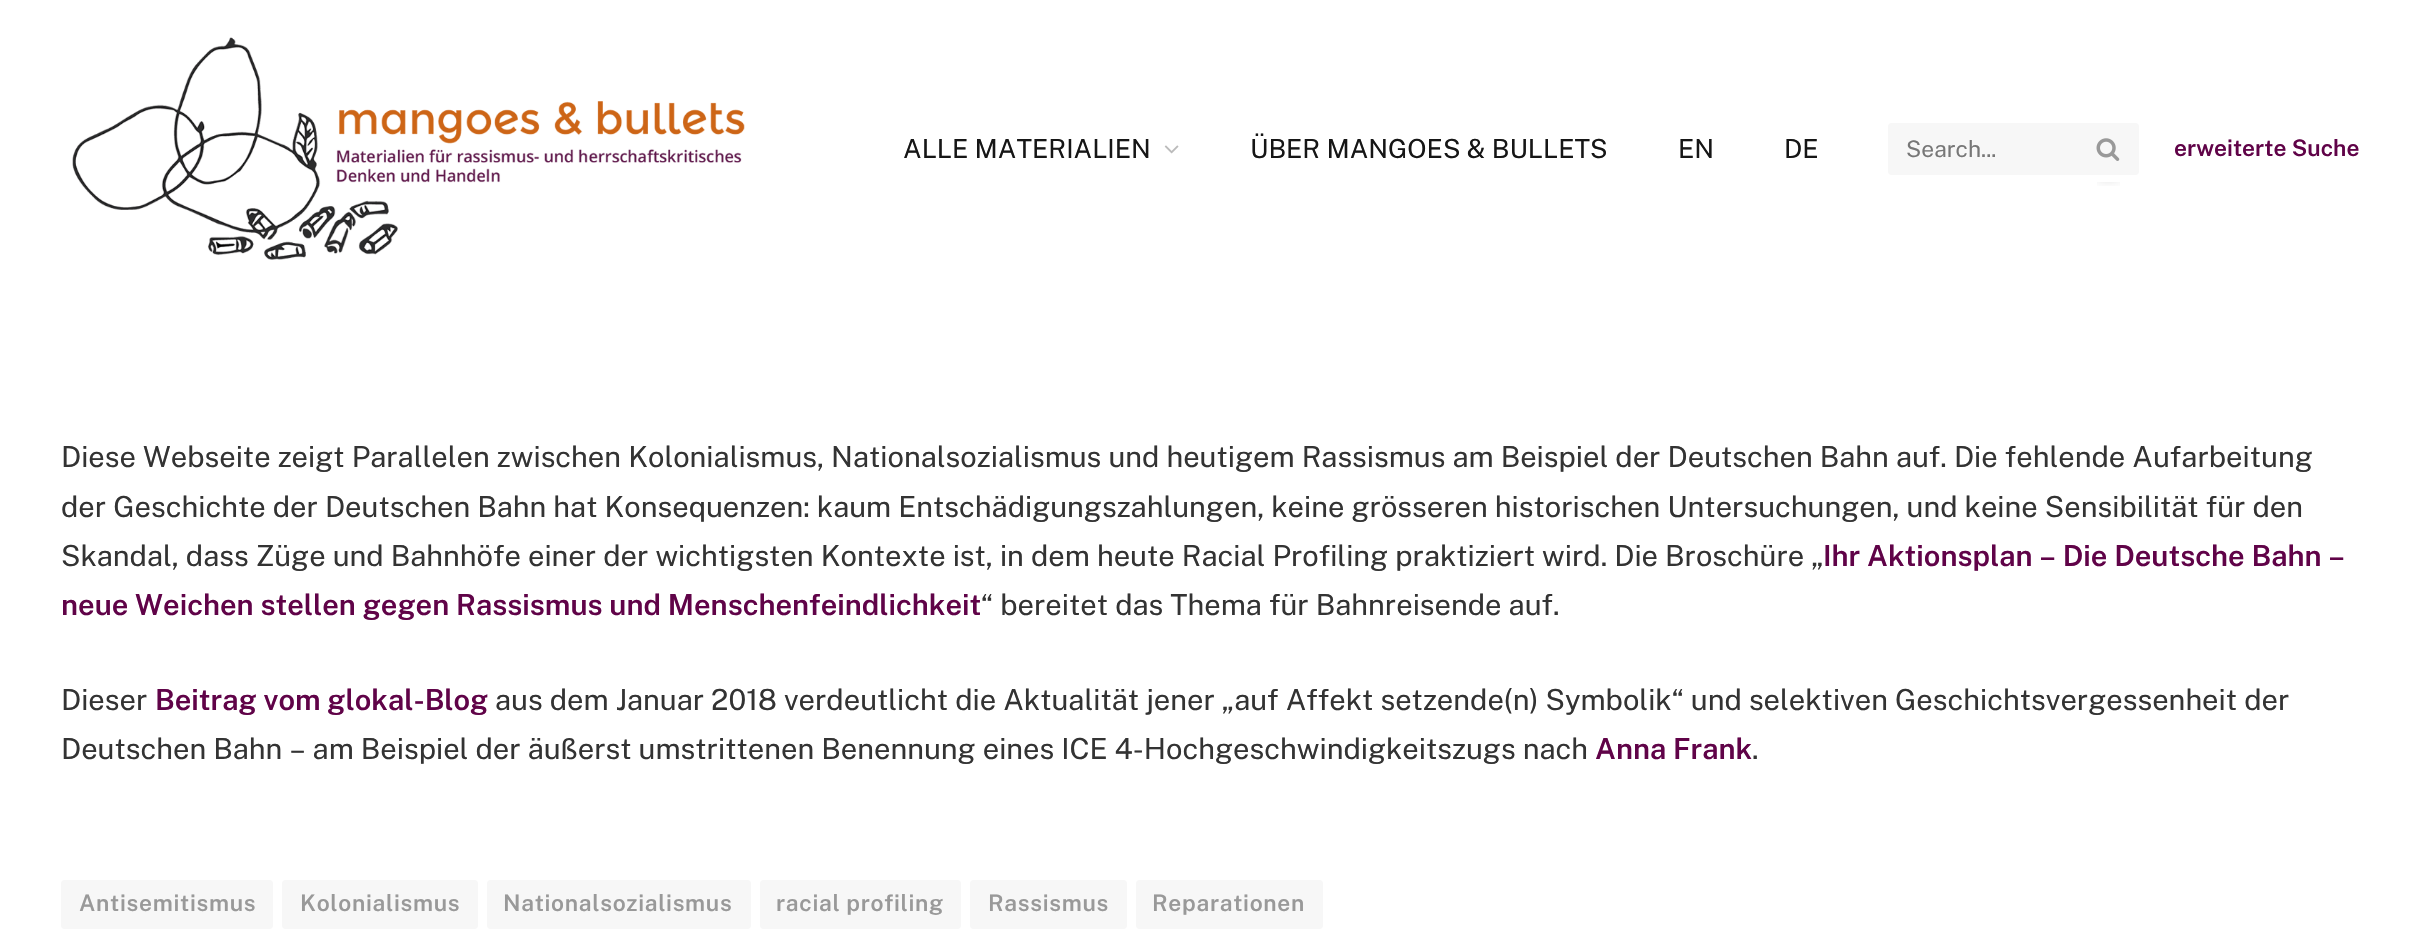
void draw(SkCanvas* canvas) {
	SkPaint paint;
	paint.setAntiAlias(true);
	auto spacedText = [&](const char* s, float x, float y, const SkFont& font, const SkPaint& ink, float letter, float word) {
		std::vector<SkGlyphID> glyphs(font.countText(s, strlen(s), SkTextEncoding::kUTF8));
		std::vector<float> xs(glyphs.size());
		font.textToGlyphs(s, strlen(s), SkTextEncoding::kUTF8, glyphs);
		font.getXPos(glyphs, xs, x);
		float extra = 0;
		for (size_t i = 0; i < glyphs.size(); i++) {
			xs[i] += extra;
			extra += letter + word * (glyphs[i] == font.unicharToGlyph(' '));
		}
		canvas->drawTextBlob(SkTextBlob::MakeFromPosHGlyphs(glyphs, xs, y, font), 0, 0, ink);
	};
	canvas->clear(0xffffffff);
	canvas->drawImageRect(SkImages::DeferredFromEncodedData(SkData::MakeFromFileName("img1.png")), SkRect::MakeXYWH(72, 37, 673, 223), SkSamplingOptions());
	SkFont f1(fontMgr->matchFamilyStyle("Public Sans", SkFontStyle::Normal()), 26.25);
	f1.setSubpixel(true);
	paint.setColor(0xff161616);
	canvas->drawString("ALLE MATERIALIEN", 903, 158, f1, paint);
	canvas->drawImageRect(SkImages::DeferredFromEncodedData(SkData::MakeFromFileName("img2.png")), SkRect::MakeXYWH(1164, 145, 15, 9), SkSamplingOptions());
	canvas->drawString("ÜBER MANGOES & BULLETS", 1250, 158, f1, paint);
	canvas->drawString("EN", 1678, 158, f1, paint);
	canvas->drawString("DE", 1784, 158, f1, paint);
	paint.setColor(0xfff7f7f7);
	canvas->drawRoundRect(SkRect::MakeXYWH(1888, 123, 251, 52), 4, 4, paint);
	SkFont f2(fontMgr->matchFamilyStyle("Public Sans", SkFontStyle::Normal()), 22.75);
	f2.setSubpixel(true);
	paint.setColor(0xff777777);
	canvas->drawString("Search...", 1906, 157, f2, paint);
	canvas->save();
	canvas->clipRect(SkRect::MakeXYWH(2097, 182, 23, 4));
	paint.setColor(0x29000000);
	paint.setMaskFilter(SkMaskFilter::MakeBlur(kNormal_SkBlurStyle, 6));
	canvas->drawRect(SkRect::MakeXYWH(2098, 126, 21, 53), paint);
	paint.setMaskFilter(nullptr);
	canvas->restore();
	canvas->drawImageRect(SkImages::DeferredFromEncodedData(SkData::MakeFromFileName("img3.png")), SkRect::MakeXYWH(2096, 138, 24, 23), SkSamplingOptions());
	SkFont f3(fontMgr->matchFamilyStyle("Public Sans", SkFontStyle(600, SkFontStyle::kNormal_Width, SkFontStyle::kUpright_Slant)), 22.75);
	f3.setSubpixel(true);
	paint.setColor(0xff600348);
	canvas->drawString("erweiterte Suche", 2174, 156, f3, paint);
	SkFont f4(fontMgr->matchFamilyStyle("Public Sans", SkFontStyle::Normal()), 29.05);
	f4.setSubpixel(true);
	paint.setColor(0xff333333);
	canvas->drawString("Diese Webseite zeigt Parallelen zwischen Kolonialismus, Nationalsozialismus und heutigem Rassismus am Beispiel der Deutschen Bahn auf. Die fehlende Aufarbeitung", 61, 467, f4, paint);
	canvas->drawString("der Geschichte der Deutschen Bahn hat Konsequenzen: kaum Entschädigungszahlungen, keine grösseren historischen Untersuchungen, und keine Sensibilität für den", 61, 517, f4, paint);
	canvas->drawString("Skandal, dass Züge und Bahnhöfe einer der wichtigsten Kontexte ist, in dem heute Racial Profiling praktiziert wird. Die Broschüre „", 61, 566, f4, paint);
	SkFont f5(fontMgr->matchFamilyStyle("Public Sans", SkFontStyle(600, SkFontStyle::kNormal_Width, SkFontStyle::kUpright_Slant)), 29.05);
	f5.setSubpixel(true);
	paint.setColor(0xff600348);
	canvas->drawString("Ihr Aktionsplan – Die Deutsche Bahn –", 1823, 566, f5, paint);
	canvas->drawString("neue Weichen stellen gegen Rassismus und Menschenfeindlichkeit", 61, 615, f5, paint);
	paint.setColor(0xff333333);
	canvas->drawString("“ bereitet das Thema für Bahnreisende auf.", 981, 615, f4, paint);
	canvas->drawString("Dieser", 61, 710, f4, paint);
	paint.setColor(0xff600348);
	canvas->drawString("Beitrag vom glokal-Blog", 155, 710, f5, paint);
	paint.setColor(0xff333333);
	canvas->drawString("aus dem Januar 2018 verdeutlicht die Aktualität jener „auf Affekt setzende(n) Symbolik“ und selektiven Geschichtsvergessenheit der", 495, 710, f4, paint);
	canvas->drawString("Deutschen Bahn – am Beispiel der äußerst umstrittenen Benennung eines ICE 4-Hochgeschwindigkeitszugs nach", 61, 759, f4, paint);
	paint.setColor(0xff600348);
	canvas->drawString("Anna Frank", 1595, 759, f5, paint);
	paint.setColor(0xff333333);
	canvas->drawString(".", 1752, 759, f4, paint);
	paint.setColor(0xfff7f7f7);
	canvas->drawRoundRect(SkRect::MakeXYWH(61, 880, 212, 49), 4, 4, paint);
	paint.setColor(0xff999999);
	spacedText("Antisemitismus", 79, 911, f3, paint, 0.7, 0);
	paint.setColor(0xfff7f7f7);
	canvas->drawRoundRect(SkRect::MakeXYWH(282, 880, 196, 49), 4, 4, paint);
	paint.setColor(0xff999999);
	spacedText("Kolonialismus", 300, 911, f3, paint, 0.7, 0);
	paint.setColor(0xfff7f7f7);
	canvas->drawRoundRect(SkRect::MakeXYWH(487, 880, 264, 49), 4, 4, paint);
	paint.setColor(0xff999999);
	spacedText("Nationalsozialismus", 503, 911, f3, paint, 0.7, 0);
	paint.setColor(0xfff7f7f7);
	canvas->drawRoundRect(SkRect::MakeXYWH(760, 880, 201, 49), 4, 4, paint);
	paint.setColor(0xff999999);
	spacedText("racial profiling", 776, 911, f3, paint, 0.7, 0);
	paint.setColor(0xfff7f7f7);
	canvas->drawRoundRect(SkRect::MakeXYWH(970, 880, 157, 49), 4, 4, paint);
	paint.setColor(0xff999999);
	spacedText("Rassismus", 988, 911, f3, paint, 0.7, 0);
	paint.setColor(0xfff7f7f7);
	canvas->drawRoundRect(SkRect::MakeXYWH(1136, 880, 187, 49), 4, 4, paint);
	paint.setColor(0xff999999);
	spacedText("Reparationen", 1152, 911, f3, paint, 0.7, 0);
}
